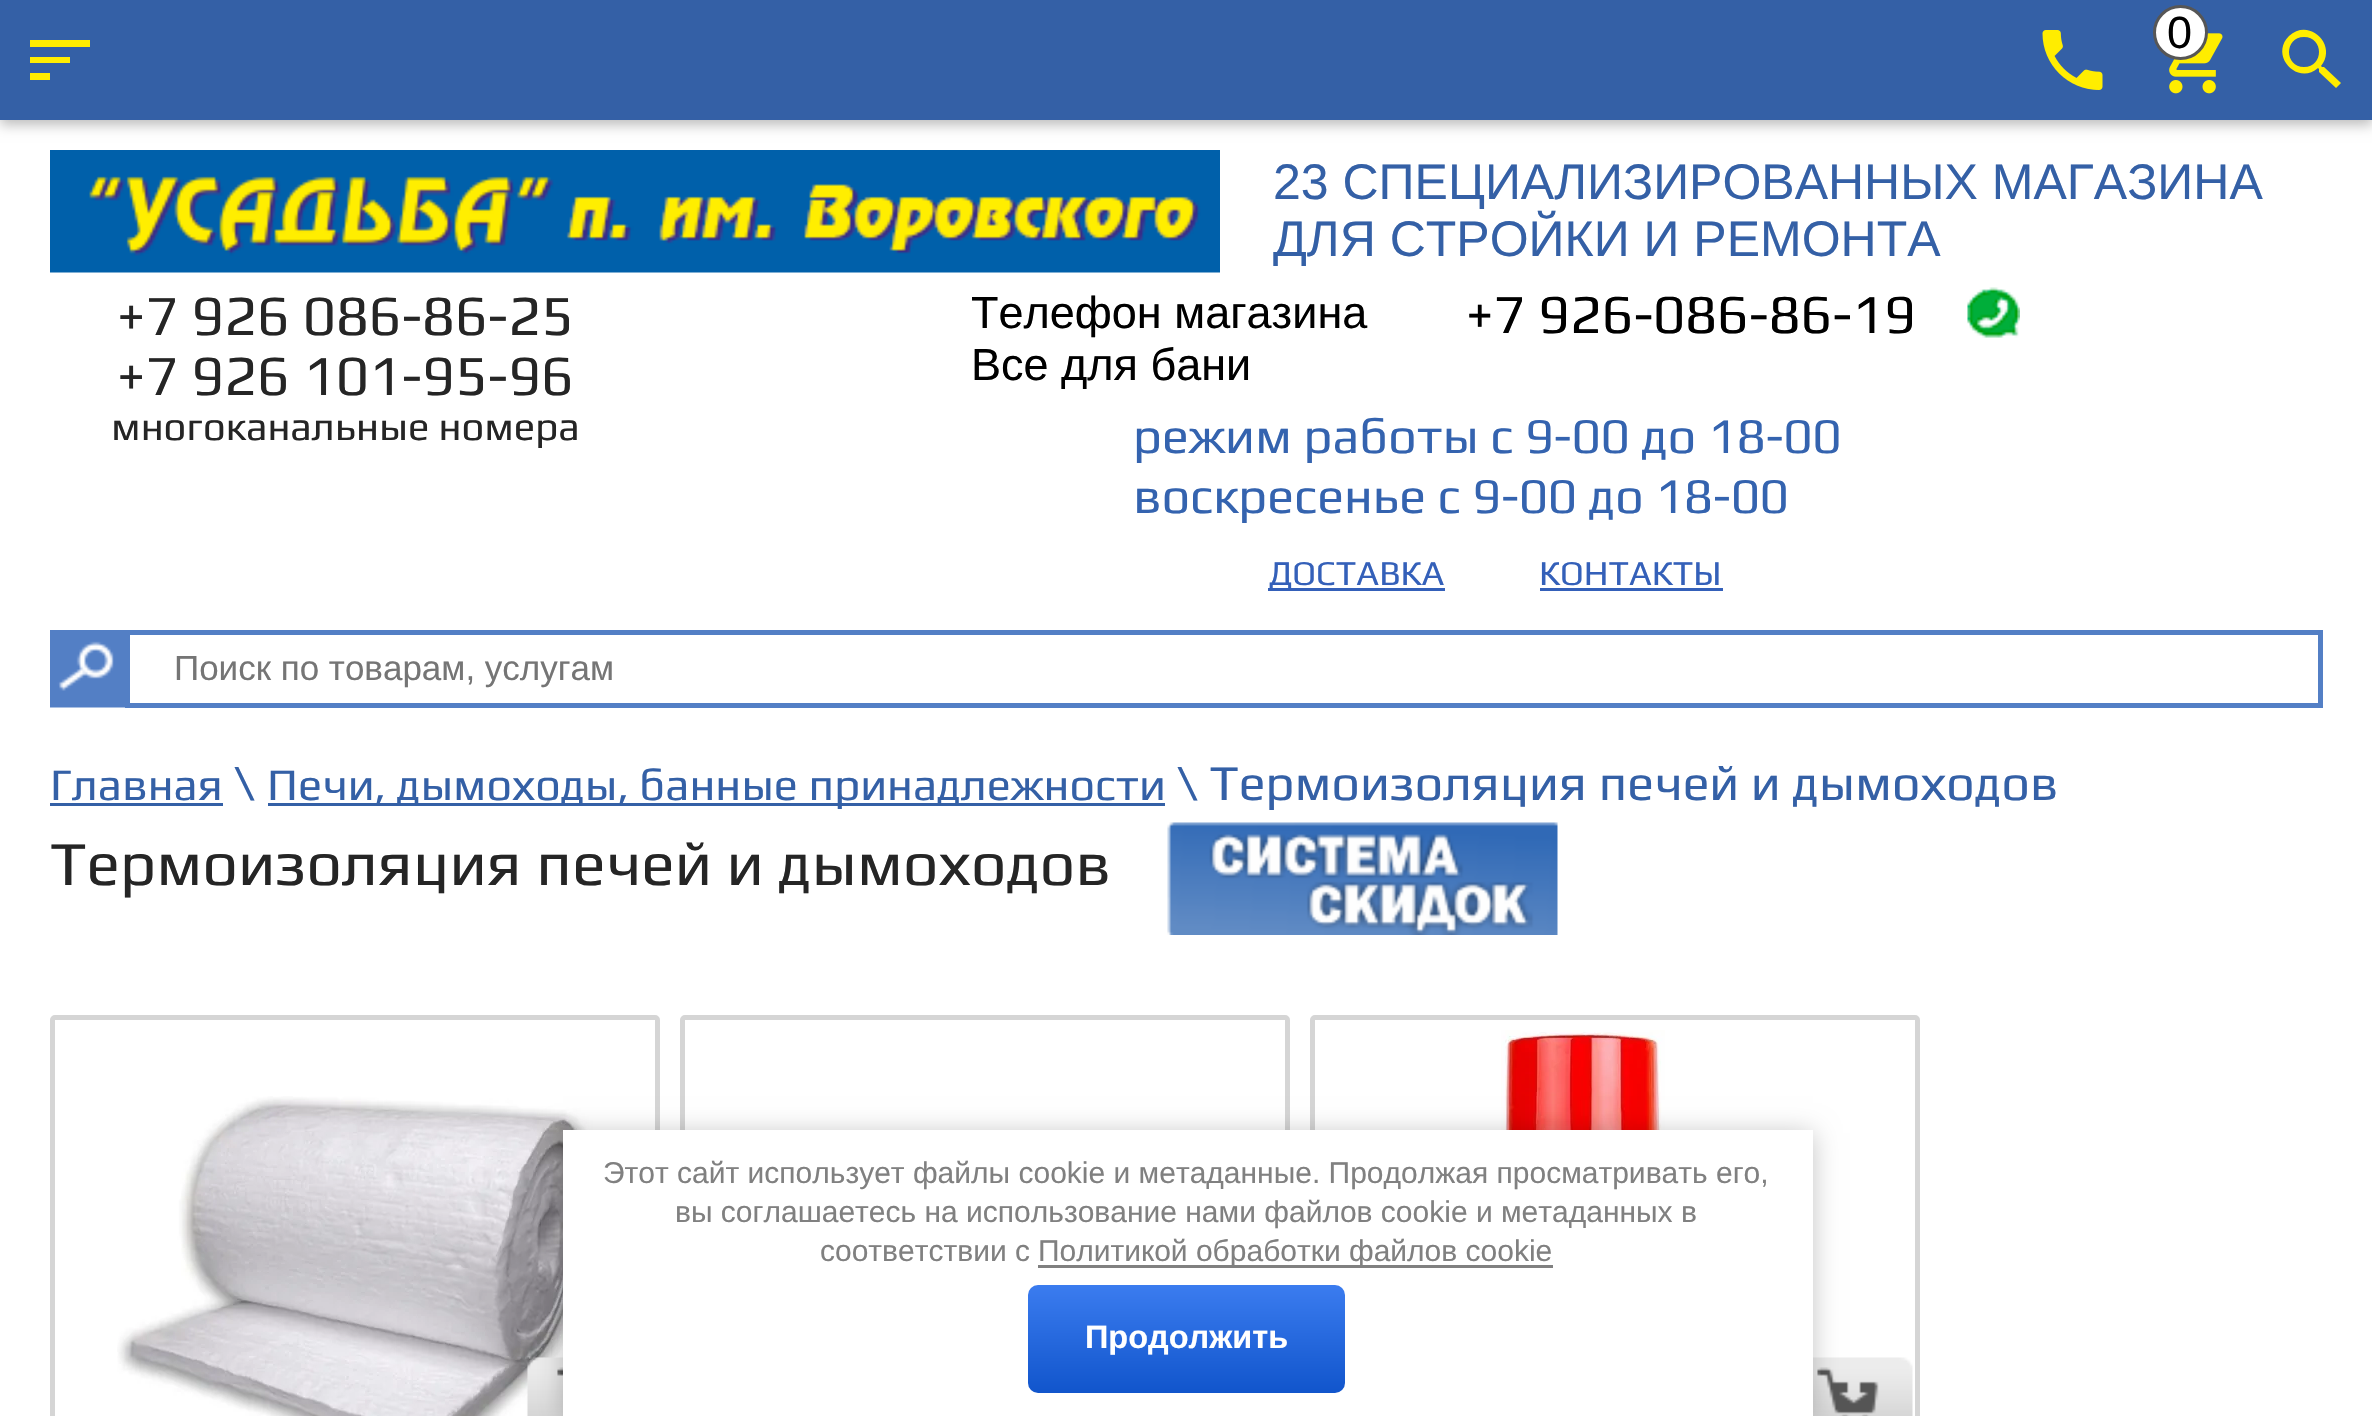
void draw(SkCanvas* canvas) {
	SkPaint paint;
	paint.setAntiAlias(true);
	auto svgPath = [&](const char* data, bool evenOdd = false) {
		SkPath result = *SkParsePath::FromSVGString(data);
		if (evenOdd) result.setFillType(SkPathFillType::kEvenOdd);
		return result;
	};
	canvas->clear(0xffffffff);
	paint.setColor(0x42000000);
	paint.setMaskFilter(SkMaskFilter::MakeBlur(kNormal_SkBlurStyle, 6));
	canvas->drawRect(SkRect::MakeXYWH(0, 5, 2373, 120), paint);
	paint.setMaskFilter(nullptr);
	paint.setColor(0xff3460a6);
	canvas->drawRect(SkRect::MakeXYWH(0, 0, 2372, 120), paint);
	canvas->drawImageRect(SkImages::DeferredFromEncodedData(SkData::MakeFromFileName("img1.png")), SkRect::MakeXYWH(2042, 30, 61, 60), SkSamplingOptions());
	canvas->drawImageRect(SkImages::DeferredFromEncodedData(SkData::MakeFromFileName("img2.png")), SkRect::MakeXYWH(2169, 33, 54, 61), SkSamplingOptions());
	paint.setColor(0xffffffff);
	canvas->drawCircle(2180.5, 32.5, 26, paint);
	paint.setStroke(true);
	paint.setStrokeWidth(3);
	paint.setColor(0xff565656);
	canvas->drawCircle(2180.5, 32.5, 26, paint);
	SkFont f1(fontMgr->matchFamilyStyle("Liberation Sans", SkFontStyle::Normal()), 45);
	f1.setSubpixel(true);
	paint.setStroke(false);
	paint.setColor(0xff000000);
	canvas->drawString("0", 2167, 48, f1, paint);
	paint.setColor(0xffffed00);
	canvas->drawPath(svgPath("M2324 67H2322L2321 66C2338 45 2309 17 2289 36C2269 56 2298 86 2318 68L2319 69V72L2336 88L2341 83ZM2304 67C2284 67 2284 37 2304 37C2324 37 2324 67 2304 67Z"), paint);
	canvas->drawPath(svgPath("M30 80H50V73H30ZM30 40V47H90V40ZM30 63H70V57H30Z"), paint);
	canvas->drawImageRect(SkImages::DeferredFromEncodedData(SkData::MakeFromFileName("img3.png")), SkRect::MakeXYWH(50, 150, 1170, 123), SkSamplingOptions());
	SkFont f2(fontMgr->matchFamilyStyle("Liberation Sans", SkFontStyle::Normal()), 50);
	f2.setSubpixel(true);
	paint.setColor(0xff3460a6);
	canvas->drawString("23 СПЕЦИАЛИЗИРОВАННЫХ МАГАЗИНА", 1273, 199, f2, paint);
	canvas->save();
	canvas->clipRect(SkRect::MakeXYWH(1273, 155, 1050, 115));
	canvas->drawString("ДЛЯ СТРОЙКИ И РЕМОНТА", 1273, 256, f2, paint);
	canvas->restore();
	SkFont f3(fontMgr->matchFamilyStyle("Play", SkFontStyle::Normal()), 56.75);
	f3.setSubpixel(true);
	paint.setColor(0xff252525);
	canvas->drawString("+7 926 086-86-25", 117, 335, f3, paint);
	canvas->drawString("+7 926 101-95-96", 117, 395, f3, paint);
	SkFont f4(fontMgr->matchFamilyStyle("Play", SkFontStyle::Normal()), 40);
	f4.setSubpixel(true);
	canvas->drawString("многоканальные номера", 111, 440, f4, paint);
	paint.setColor(0xff000000);
	canvas->drawString("Телефон магазина", 971, 328, f1, paint);
	canvas->drawString("Все для бани", 971, 380, f1, paint);
	SkFont f5(fontMgr->matchFamilyStyle("Play", SkFontStyle::Normal()), 55);
	f5.setSubpixel(true);
	canvas->drawString("+7 926-086-86-19", 1466, 333, f5, paint);
	canvas->drawImageRect(SkImages::DeferredFromEncodedData(SkData::MakeFromFileName("img4.png")), SkRect::MakeXYWH(1967, 287, 53, 51), SkSamplingOptions());
	SkFont f6(fontMgr->matchFamilyStyle("Play", SkFontStyle::Normal()), 50);
	f6.setSubpixel(true);
	paint.setColor(0xff3463af);
	canvas->drawString("режим работы с 9-00 до 18-00", 1133, 453, f6, paint);
	canvas->drawString("воскресенье с 9-00 до 18-00", 1133, 513, f6, paint);
	paint.setColor(0xff3460b9);
	canvas->drawRect(SkRect::MakeXYWH(1268, 588, 177, 3), paint);
	SkFont f7(fontMgr->matchFamilyStyle("Play", SkFontStyle::Normal()), 35);
	f7.setSubpixel(true);
	canvas->drawString("ДОСТАВКА", 1269, 585, f7, paint);
	canvas->drawString("КОНТАКТЫ", 1539, 585, f7, paint);
	canvas->drawRect(SkRect::MakeXYWH(1540, 588, 183, 3), paint);
	canvas->drawImageRect(SkImages::DeferredFromEncodedData(SkData::MakeFromFileName("img5.png")), SkRect::MakeXYWH(50, 630, 75, 78), SkSamplingOptions());
	paint.setStroke(true);
	paint.setStrokeWidth(5);
	paint.setColor(0xff537fc5);
	canvas->drawRect(SkRect::MakeXYWH(127.5, 632.5, 2193, 73), paint);
	SkFont f8(fontMgr->matchFamilyStyle("Liberation Sans", SkFontStyle::Normal()), 35);
	f8.setSubpixel(true);
	paint.setStroke(false);
	paint.setColor(0xff757575);
	canvas->drawString("Поиск по товарам, услугам", 174, 680, f8, paint);
	SkFont f9(fontMgr->matchFamilyStyle("Play", SkFontStyle::Normal()), 45);
	f9.setSubpixel(true);
	paint.setColor(0xff3460a6);
	canvas->drawString("Главная", 50, 800, f9, paint);
	canvas->drawRect(SkRect::MakeXYWH(50, 803, 173, 3), paint);
	canvas->drawString("\\", 234, 800, f6, paint);
	canvas->drawRect(SkRect::MakeXYWH(268, 803, 897, 3), paint);
	canvas->drawString("Печи, дымоходы, банные принадлежности", 267, 800, f9, paint);
	canvas->drawString("\\ Термоизоляция печей и дымоходов", 1177, 800, f6, paint);
	SkFont f10(fontMgr->matchFamilyStyle("Play", SkFontStyle::Normal()), 62.5);
	f10.setSubpixel(true);
	paint.setColor(0xff252525);
	canvas->drawString("Термоизоляция печей и дымоходов", 50, 885, f10, paint);
	canvas->drawImageRect(SkImages::DeferredFromEncodedData(SkData::MakeFromFileName("img6.png")), SkRect::MakeXYWH(1167, 822, 391, 113), SkSamplingOptions());
	paint.setStroke(true);
	paint.setColor(0xffd5d5d5);
	canvas->drawRoundRect(SkRect::MakeXYWH(52.5, 1017.5, 605, 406), 2.5, 2.5, paint);
	canvas->drawImageRect(SkImages::DeferredFromEncodedData(SkData::MakeFromFileName("img7.png")), SkRect::MakeXYWH(117, 1096, 480, 320), SkSamplingOptions());
	canvas->drawImageRect(SkImages::DeferredFromEncodedData(SkData::MakeFromFileName("img8.png")), SkRect::MakeXYWH(527, 1357, 36, 59), SkSamplingOptions());
	canvas->drawImageRect(SkImages::DeferredFromEncodedData(SkData::MakeFromFileName("img9.png")), SkRect::MakeXYWH(557, 1367, 6, 9), SkSamplingOptions());
	canvas->drawRoundRect(SkRect::MakeXYWH(682.5, 1017.5, 605, 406), 2.5, 2.5, paint);
	canvas->drawRoundRect(SkRect::MakeXYWH(1312.5, 1017.5, 605, 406), 2.5, 2.5, paint);
	canvas->drawImageRect(SkImages::DeferredFromEncodedData(SkData::MakeFromFileName("img10.png")), SkRect::MakeXYWH(1501, 1030, 164, 100), SkSamplingOptions());
	canvas->drawImageRect(SkImages::DeferredFromEncodedData(SkData::MakeFromFileName("img11.png")), SkRect::MakeXYWH(1813, 1357, 100, 59), SkSamplingOptions());
	canvas->drawImageRect(SkImages::DeferredFromEncodedData(SkData::MakeFromFileName("img12.png")), SkRect::MakeXYWH(1817, 1367, 62, 49), SkSamplingOptions());
	paint.setStroke(false);
	paint.setColor(0x3b000000);
	paint.setMaskFilter(SkMaskFilter::MakeBlur(kNormal_SkBlurStyle, 12.5));
	canvas->drawRect(SkRect::MakeXYWH(563, 1133, 1250, 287), paint);
	paint.setMaskFilter(nullptr);
	paint.setColor(0xffffffff);
	canvas->drawRect(SkRect::MakeXYWH(563, 1130, 1250, 286), paint);
	SkFont f11(fontMgr->matchFamilyStyle("Liberation Sans", SkFontStyle::Normal()), 30);
	f11.setSubpixel(true);
	paint.setColor(0xff808080);
	canvas->drawString("Этот сайт использует файлы cookie и метаданные. Продолжая просматривать его,", 603, 1183, f11, paint);
	canvas->drawString("вы соглашаетесь на использование нами файлов cookie и метаданных в", 675, 1222, f11, paint);
	canvas->drawString("соответствии с", 820, 1261, f11, paint);
	canvas->drawRect(SkRect::MakeXYWH(1038, 1265, 515, 3), paint);
	canvas->drawString("Политикой обработки файлов cookie", 1038, 1261, f11, paint);
	{
		const SkColor colors[] = {0xff3b7cef, 0xff1155cc};
		const float stops[] = {0, 1};
		const SkPoint ends[] = {{1186, 1285}, {1186, 1393}};
		paint.setShader(SkGradientShader::MakeLinear(ends, colors, stops, 2, SkTileMode::kClamp));
		paint.setAlpha(255);
	}
	canvas->drawRoundRect(SkRect::MakeXYWH(1028, 1285, 317, 108), 10, 10, paint);
	SkFont f12(fontMgr->matchFamilyStyle("Liberation Sans", SkFontStyle::Bold()), 32.5);
	f12.setSubpixel(true);
	paint.setShader(nullptr);
	paint.setColor(0xffffffff);
	canvas->drawString("Продолжить", 1085, 1348, f12, paint);
}
